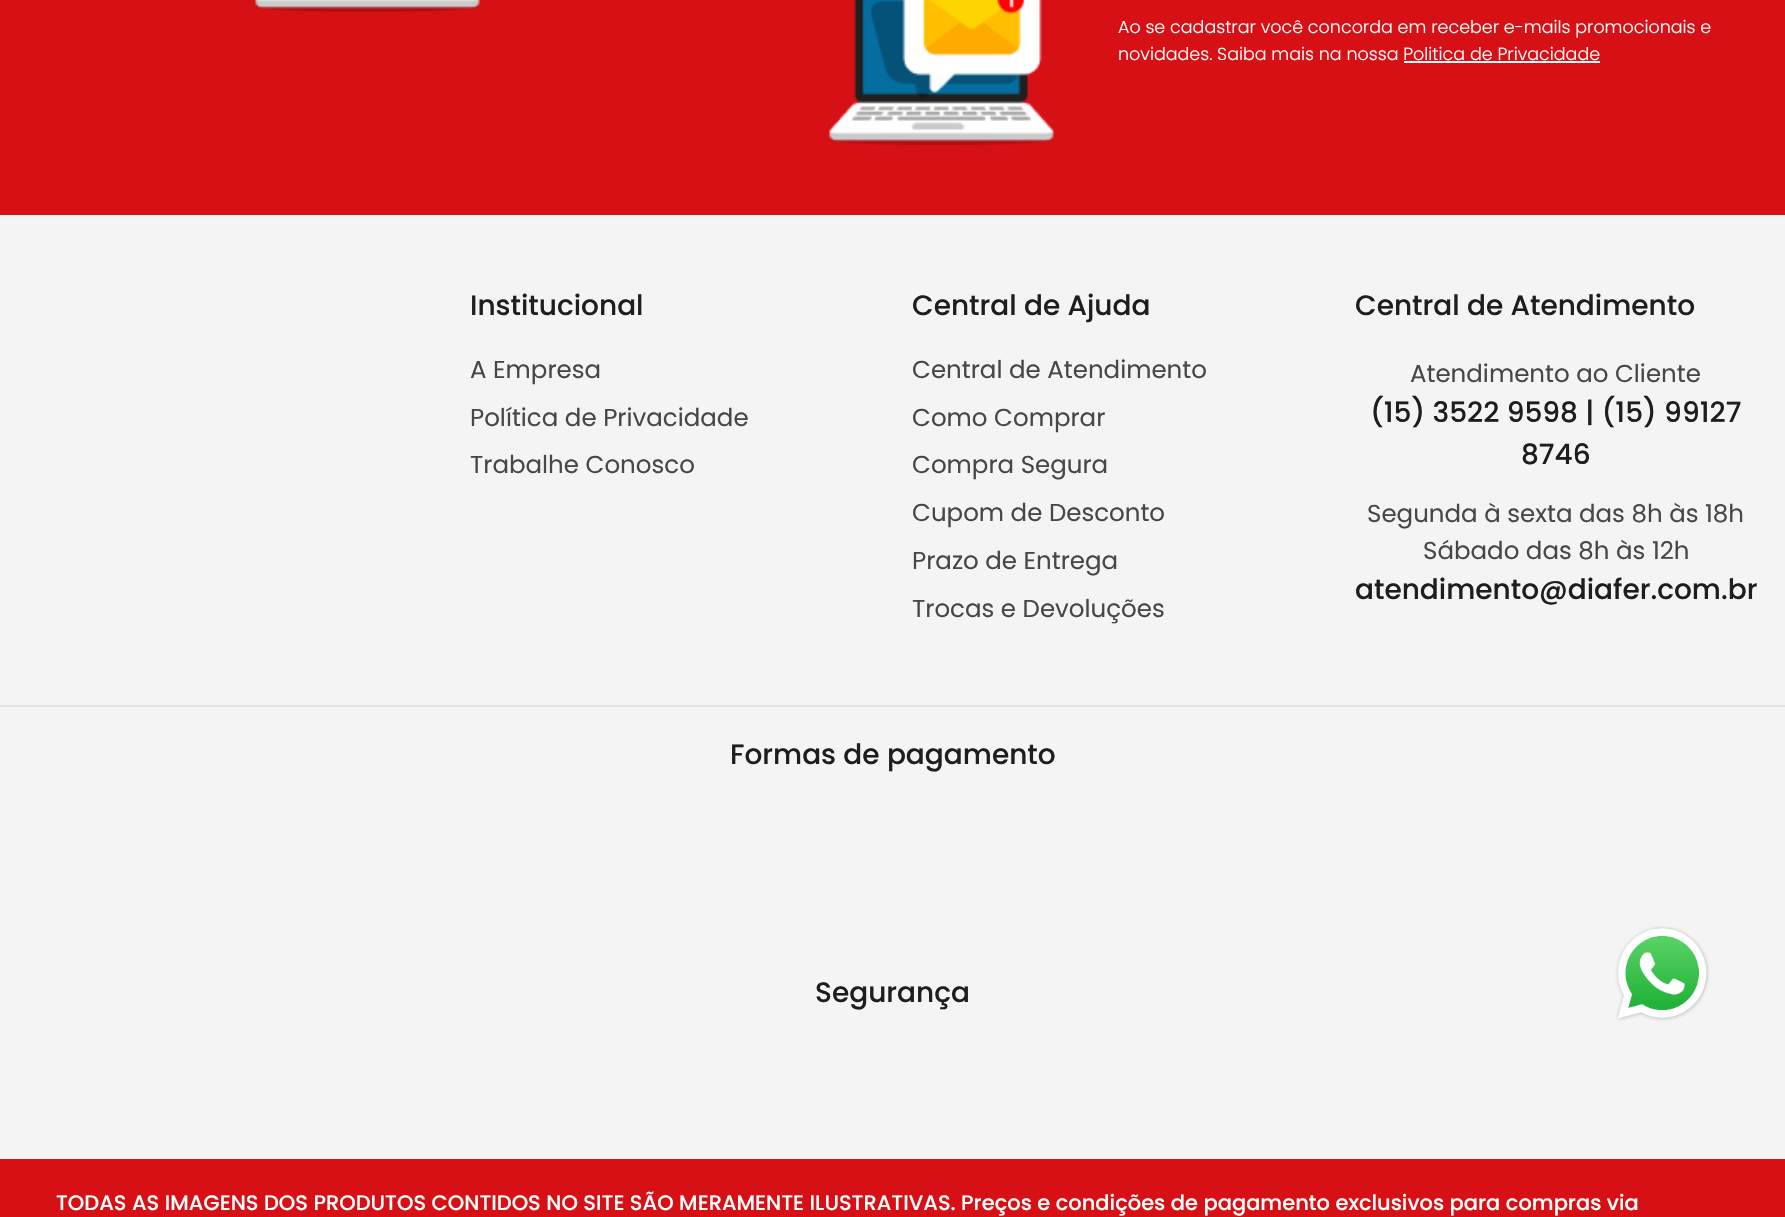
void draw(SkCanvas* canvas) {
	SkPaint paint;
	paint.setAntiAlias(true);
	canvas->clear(0xfff4f4f4);
	paint.setColor(0xffd71016);
	canvas->drawRect(SkRect::MakeXYWH(0, 0, 1785, 215), paint);
	canvas->drawImageRect(SkImages::DeferredFromEncodedData(SkData::MakeFromFileName("img1.png")), SkRect::MakeXYWH(255, 0, 225, 12), SkSamplingOptions());
	canvas->drawImageRect(SkImages::DeferredFromEncodedData(SkData::MakeFromFileName("img2.png")), SkRect::MakeXYWH(829, 0, 225, 145), SkSamplingOptions());
	SkFont f1(fontMgr->matchFamilyStyle("Poppins", SkFontStyle(300, SkFontStyle::kNormal_Width, SkFontStyle::kUpright_Slant)), 17.5);
	f1.setSubpixel(true);
	paint.setColor(0xffffffff);
	canvas->drawString("Ao se cadastrar você concorda em receber e-mails promocionais e", 1118, 33, f1, paint);
	canvas->drawString("novidades. Saiba mais na nossa Politica de Privacidade", 1118, 60, f1, paint);
	canvas->drawRect(SkRect::MakeXYWH(1404, 61, 196, 2), paint);
	SkFont f2(fontMgr->matchFamilyStyle("Poppins", SkFontStyle(500, SkFontStyle::kNormal_Width, SkFontStyle::kUpright_Slant)), 28);
	f2.setSubpixel(true);
	paint.setColor(0xff1e1e1d);
	canvas->drawString("Institucional", 470, 315, f2, paint);
	SkFont f3(fontMgr->matchFamilyStyle("Poppins", SkFontStyle::Normal()), 24.5);
	f3.setSubpixel(true);
	paint.setColor(0xff474745);
	canvas->drawString("A Empresa", 470, 378, f3, paint);
	canvas->drawString("Política de Privacidade", 470, 426, f3, paint);
	canvas->drawString("Trabalhe Conosco", 470, 473, f3, paint);
	paint.setColor(0xff1e1e1d);
	canvas->drawString("Central de Ajuda", 912, 315, f2, paint);
	paint.setColor(0xff474745);
	canvas->drawString("Central de Atendimento", 912, 378, f3, paint);
	canvas->drawString("Como Comprar", 912, 426, f3, paint);
	canvas->drawString("Compra Segura", 912, 473, f3, paint);
	canvas->drawString("Cupom de Desconto", 912, 521, f3, paint);
	canvas->drawString("Prazo de Entrega", 912, 569, f3, paint);
	canvas->drawString("Trocas e Devoluções", 912, 617, f3, paint);
	paint.setColor(0xff1e1e1d);
	canvas->drawString("Central de Atendimento", 1355, 315, f2, paint);
	paint.setColor(0xff474745);
	canvas->drawString("Atendimento ao Cliente", 1410, 382, f3, paint);
	paint.setColor(0xff1e1e1d);
	canvas->drawString("(15) 3522 9598 | (15) 99127", 1370, 422, f2, paint);
	canvas->drawString("8746", 1521, 464, f2, paint);
	paint.setColor(0xff474745);
	canvas->drawString("Segunda à sexta das 8h às 18h", 1367, 522, f3, paint);
	canvas->drawString("Sábado das 8h às 12h", 1423, 559, f3, paint);
	paint.setColor(0xff1e1e1d);
	canvas->drawString("atendimento@diafer.com.br", 1355, 599, f2, paint);
	paint.setColor(0xffe5e2e0);
	canvas->drawRect(SkRect::MakeXYWH(0, 705, 1785, 2), paint);
	paint.setColor(0xff1e1e1d);
	canvas->drawString("Formas de pagamento", 730, 764, f2, paint);
	canvas->drawString("Segurança", 815, 1002, f2, paint);
	paint.setColor(0xffd71016);
	canvas->drawRect(SkRect::MakeXYWH(0, 1159, 1785, 58), paint);
	SkFont f4(fontMgr->matchFamilyStyle("Poppins", SkFontStyle(500, SkFontStyle::kNormal_Width, SkFontStyle::kUpright_Slant)), 21);
	f4.setSubpixel(true);
	paint.setColor(0xffffffff);
	canvas->drawString("TODAS AS IMAGENS DOS PRODUTOS CONTIDOS NO SITE SÃO MERAMENTE ILUSTRATIVAS. Preços e condições de pagamento exclusivos para compras via", 56, 1210, f4, paint);
	canvas->drawImageRect(SkImages::DeferredFromEncodedData(SkData::MakeFromFileName("img3.png")), SkRect::MakeXYWH(1615, 926, 95, 95), SkSamplingOptions());
}
